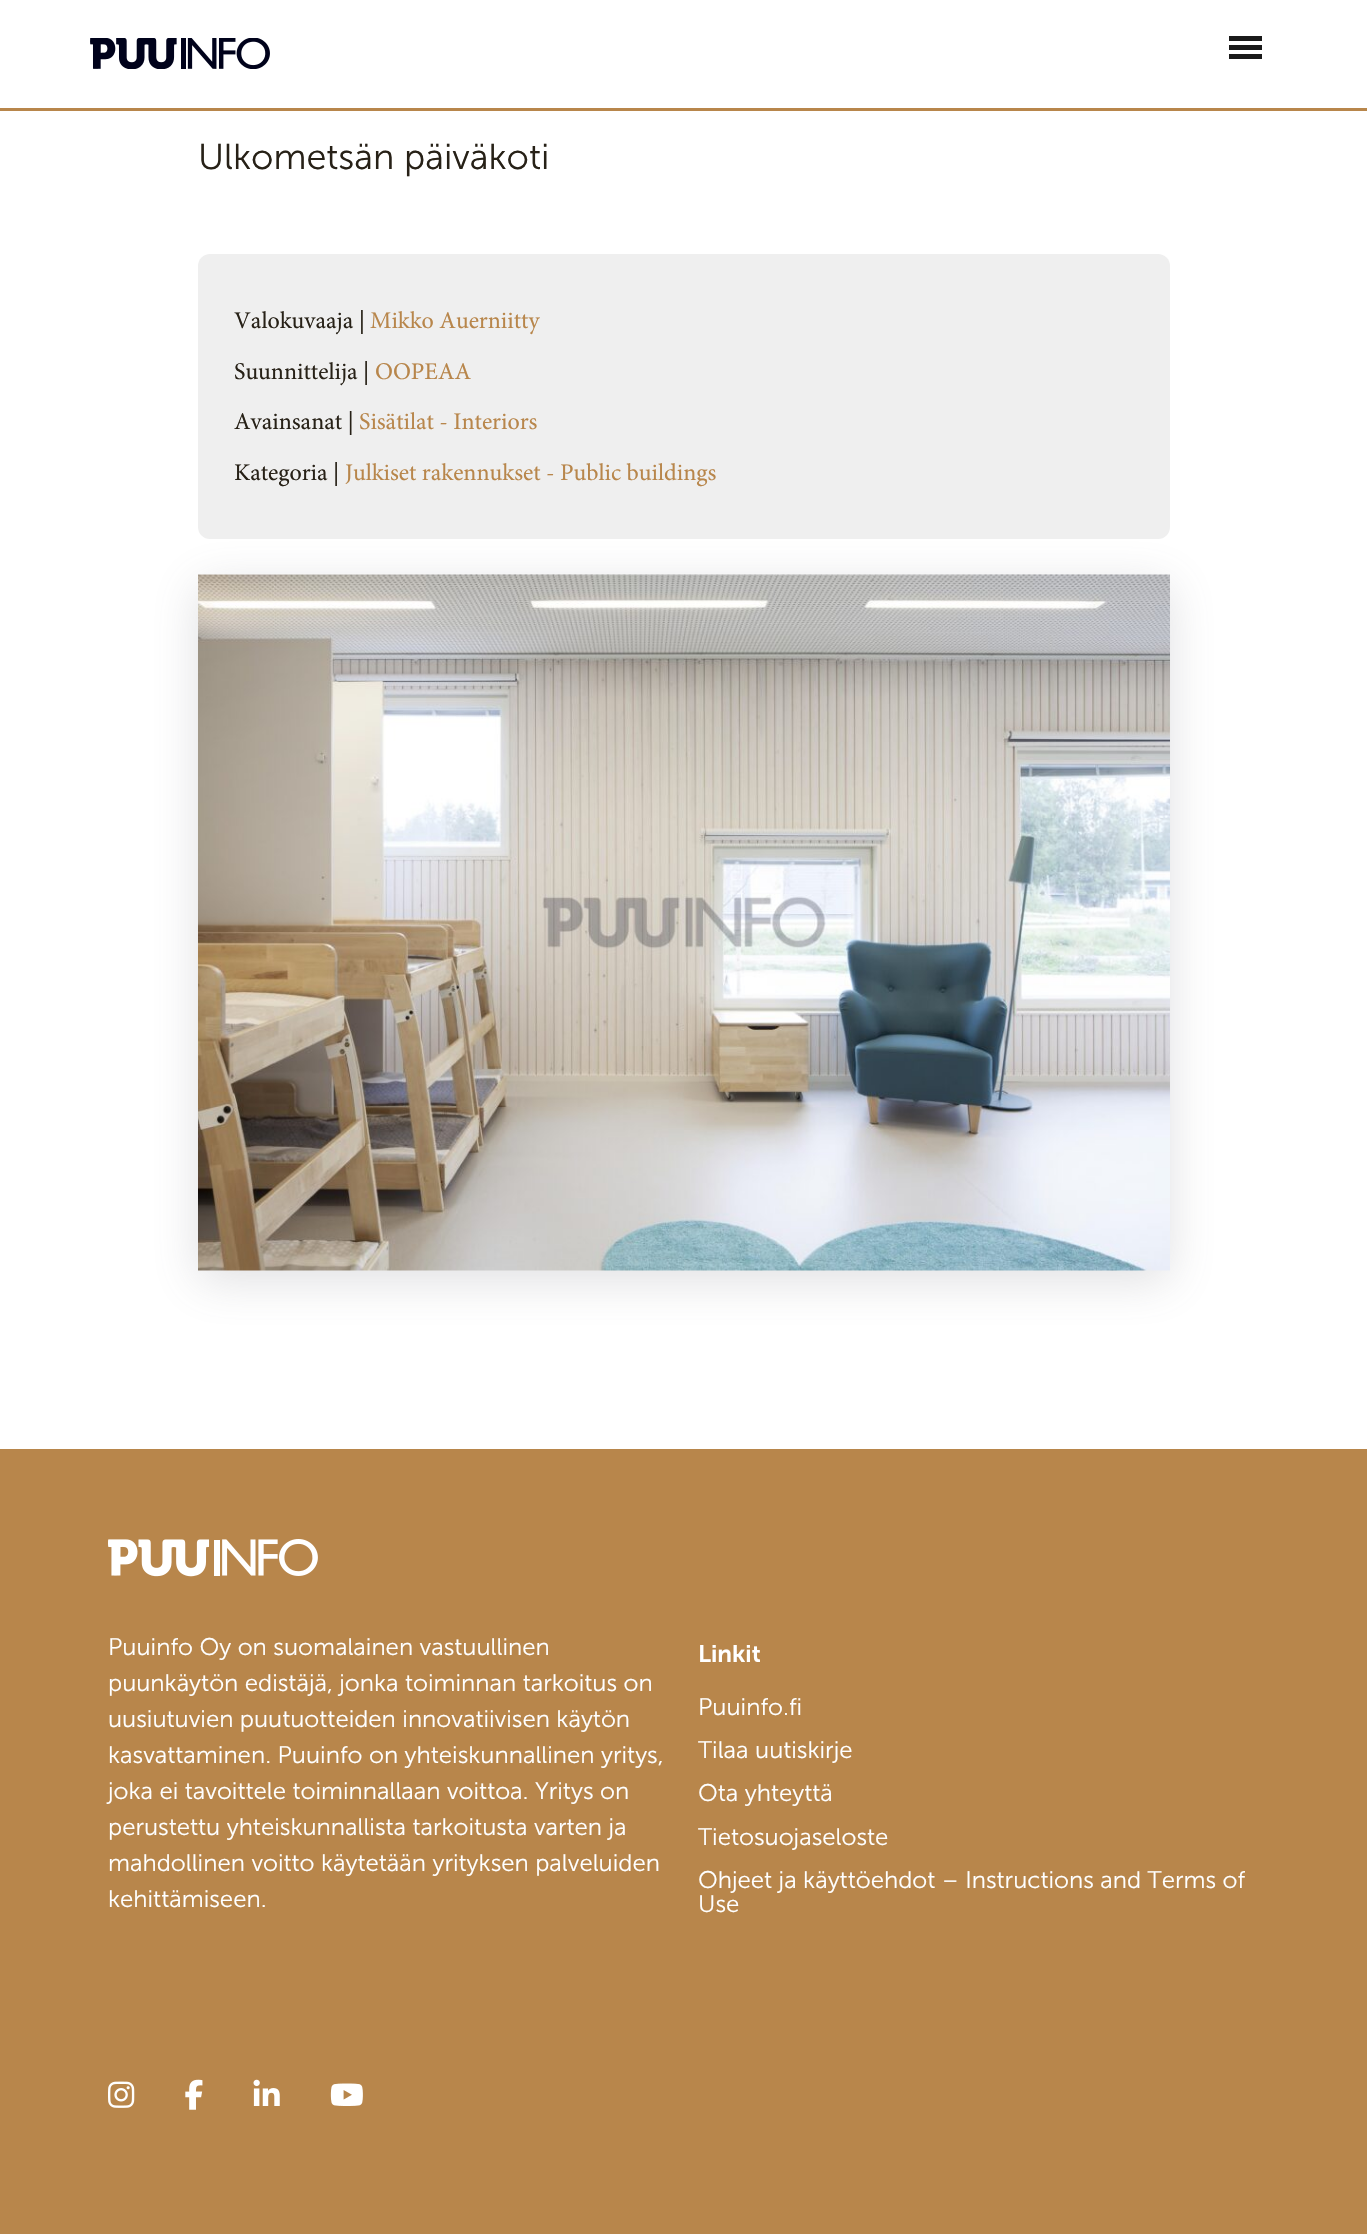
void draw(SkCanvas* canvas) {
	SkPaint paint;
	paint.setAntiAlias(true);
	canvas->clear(0xffffffff);
	paint.setColor(0xffb8864b);
	canvas->drawRect(SkRect::MakeXYWH(0, 108, 1367, 3), paint);
	canvas->drawImageRect(SkImages::DeferredFromEncodedData(SkData::MakeFromFileName("img1.png")), SkRect::MakeXYWH(90, 38, 180, 31), SkSamplingOptions());
	paint.setColor(0xff1a1a1a);
	canvas->drawRect(SkRect::MakeXYWH(1229, 54, 33, 5), paint);
	canvas->drawRect(SkRect::MakeXYWH(1229, 36, 33, 5), paint);
	canvas->drawRect(SkRect::MakeXYWH(1229, 45, 33, 5), paint);
	SkFont f1(fontMgr->matchFamilyStyle("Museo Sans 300", SkFontStyle(300, SkFontStyle::kNormal_Width, SkFontStyle::kUpright_Slant)), 36);
	f1.setSubpixel(true);
	paint.setColor(0xff272117);
	canvas->drawString("Ulkometsän päiväkoti", 198, 169, f1, paint);
	paint.setColor(0xffefefef);
	canvas->drawRoundRect(SkRect::MakeXYWH(198, 254, 972, 285), 12, 12, paint);
	SkFont f2(fontMgr->matchFamilyStyle("Minion", SkFontStyle::Normal()), 24);
	f2.setSubpixel(true);
	paint.setColor(0xff272117);
	canvas->drawString("Valokuvaaja |", 234, 328, f2, paint);
	paint.setColor(0xffb8864b);
	canvas->drawString("Mikko Auerniitty", 370, 328, f2, paint);
	paint.setColor(0xff272117);
	canvas->drawString("Suunnittelija |", 234, 379, f2, paint);
	paint.setColor(0xffb8864b);
	canvas->drawString("OOPEAA", 375, 379, f2, paint);
	paint.setColor(0xff272117);
	canvas->drawString("Avainsanat |", 234, 429, f2, paint);
	paint.setColor(0xffb8864b);
	canvas->drawString("Sisätilat - Interiors", 359, 429, f2, paint);
	paint.setColor(0xff272117);
	canvas->drawString("Kategoria |", 234, 480, f2, paint);
	paint.setColor(0xffb8864b);
	canvas->drawString("Julkiset rakennukset - Public buildings", 345, 480, f2, paint);
	paint.setColor(0x3363636e);
	paint.setMaskFilter(SkMaskFilter::MakeBlur(kNormal_SkBlurStyle, 22));
	canvas->drawRect(SkRect::MakeXYWH(198, 585, 972, 696), paint);
	paint.setMaskFilter(nullptr);
	canvas->drawImageRect(SkImages::DeferredFromEncodedData(SkData::MakeFromFileName("img2.png")), SkRect::MakeXYWH(198, 574, 972, 697), SkSamplingOptions());
	paint.setColor(0xffb8864b);
	canvas->drawRect(SkRect::MakeXYWH(0, 1449, 1367, 785), paint);
	canvas->drawImageRect(SkImages::DeferredFromEncodedData(SkData::MakeFromFileName("img3.png")), SkRect::MakeXYWH(108, 1539, 210, 38), SkSamplingOptions());
	SkFont f3(fontMgr->matchFamilyStyle("Museo Sans 300", SkFontStyle(300, SkFontStyle::kNormal_Width, SkFontStyle::kUpright_Slant)), 24);
	f3.setSubpixel(true);
	paint.setColor(0xffffffff);
	canvas->drawString("Puuinfo Oy on suomalainen vastuullinen", 108, 1655, f3, paint);
	canvas->drawString("puunkäytön edistäjä, jonka toiminnan tarkoitus on", 108, 1691, f3, paint);
	canvas->drawString("uusiutuvien puutuotteiden innovatiivisen käytön", 108, 1727, f3, paint);
	canvas->drawString("kasvattaminen. Puuinfo on yhteiskunnallinen yritys,", 108, 1763, f3, paint);
	canvas->drawString("joka ei tavoittele toiminnallaan voittoa. Yritys on", 108, 1799, f3, paint);
	canvas->drawString("perustettu yhteiskunnallista tarkoitusta varten ja", 108, 1835, f3, paint);
	canvas->drawString("mahdollinen voitto käytetään yrityksen palveluiden", 108, 1871, f3, paint);
	canvas->drawString("kehittämiseen.", 108, 1907, f3, paint);
	SkFont f4(fontMgr->matchFamilyStyle("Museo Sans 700", SkFontStyle(600, SkFontStyle::kNormal_Width, SkFontStyle::kUpright_Slant)), 24);
	f4.setSubpixel(true);
	canvas->drawString("Linkit", 698, 1662, f4, paint);
	canvas->drawString("Puuinfo.fi", 698, 1715, f3, paint);
	canvas->drawString("Tilaa uutiskirje", 698, 1758, f3, paint);
	canvas->drawString("Ota yhteyttä", 698, 1801, f3, paint);
	canvas->drawString("Tietosuojaseloste", 698, 1845, f3, paint);
	canvas->drawString("Ohjeet ja käyttöehdot – Instructions and Terms of", 698, 1888, f3, paint);
	canvas->drawString("Use", 698, 1912, f3, paint);
	canvas->drawImageRect(SkImages::DeferredFromEncodedData(SkData::MakeFromFileName("img4.png")), SkRect::MakeXYWH(108, 2081, 27, 27), SkSamplingOptions());
	canvas->drawImageRect(SkImages::DeferredFromEncodedData(SkData::MakeFromFileName("img5.png")), SkRect::MakeXYWH(185, 2079, 18, 31), SkSamplingOptions());
	canvas->drawImageRect(SkImages::DeferredFromEncodedData(SkData::MakeFromFileName("img6.png")), SkRect::MakeXYWH(253, 2079, 27, 27), SkSamplingOptions());
	canvas->drawImageRect(SkImages::DeferredFromEncodedData(SkData::MakeFromFileName("img7.png")), SkRect::MakeXYWH(330, 2083, 33, 23), SkSamplingOptions());
}
